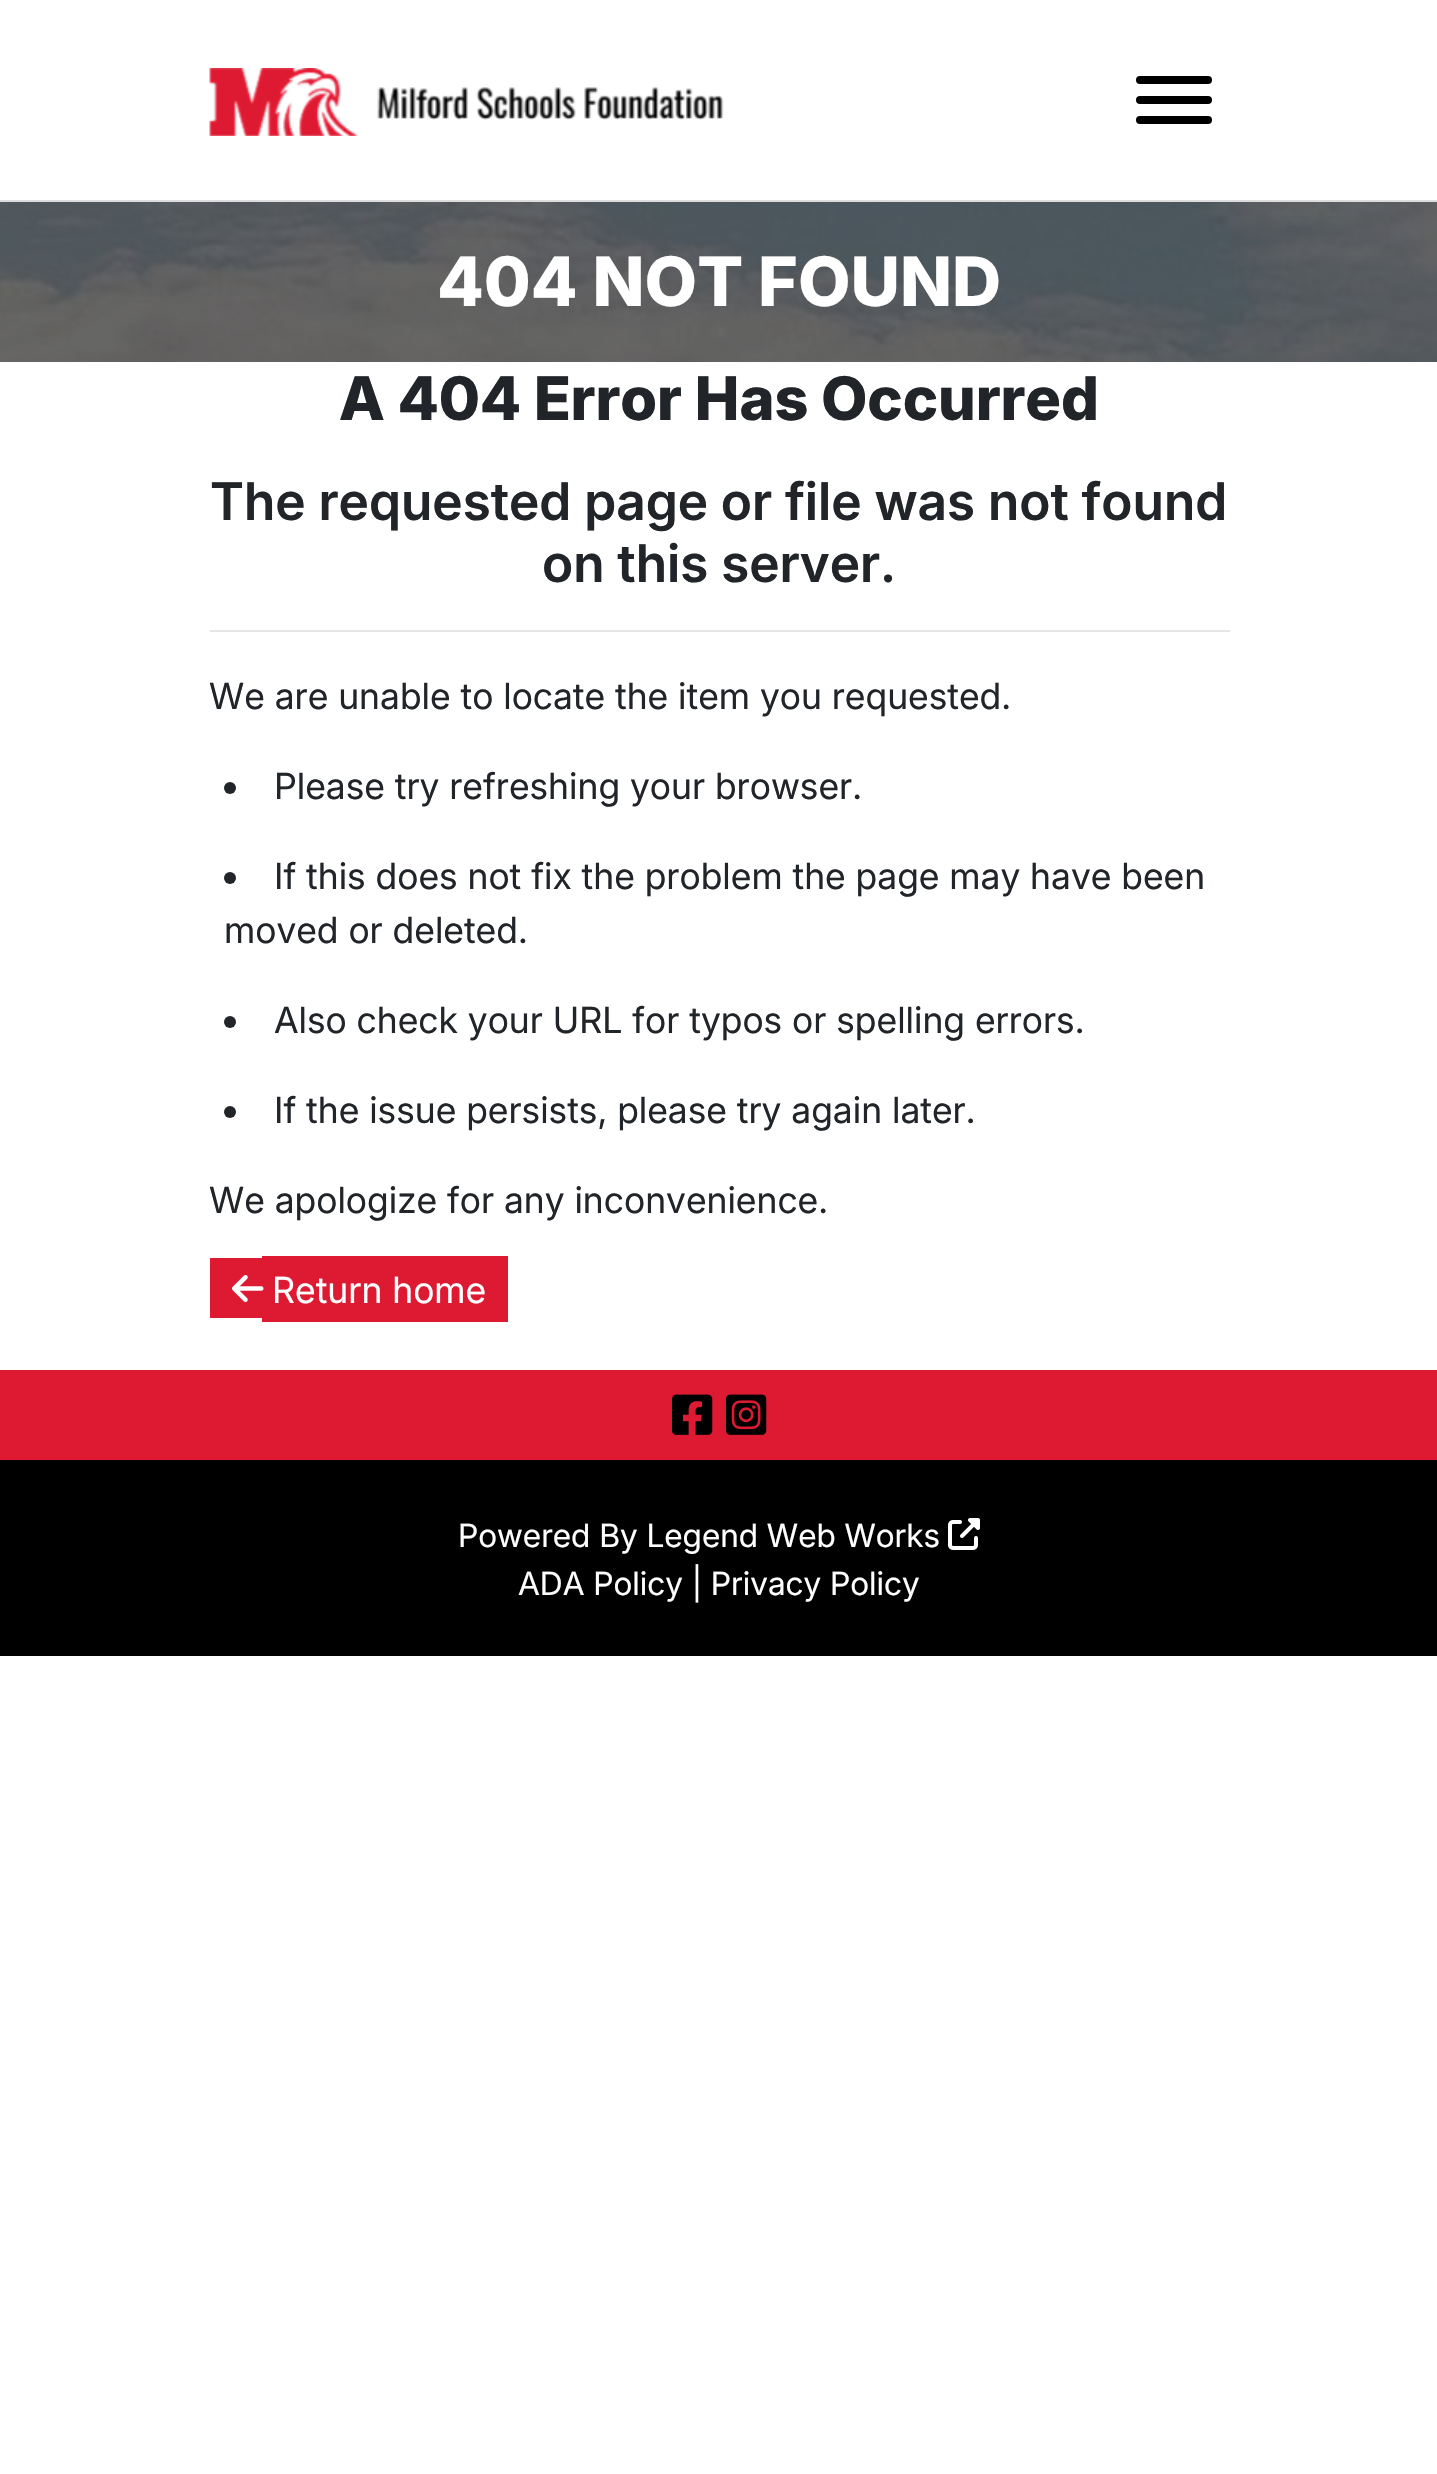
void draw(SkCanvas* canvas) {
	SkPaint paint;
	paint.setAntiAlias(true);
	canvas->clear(0xffffffff);
	paint.setColor(0xffdddddd);
	canvas->drawRect(SkRect::MakeXYWH(0, 200, 1437, 2), paint);
	canvas->drawImageRect(SkImages::DeferredFromEncodedData(SkData::MakeFromFileName("img1.png")), SkRect::MakeXYWH(209, 68, 515, 68), SkSamplingOptions());
	paint.setColor(0xff000000);
	canvas->drawRoundRect(SkRect::MakeXYWH(1136, 76, 76, 8), 4, 4, paint);
	canvas->drawRoundRect(SkRect::MakeXYWH(1136, 96, 76, 8), 4, 4, paint);
	canvas->drawRoundRect(SkRect::MakeXYWH(1136, 116, 76, 8), 4, 4, paint);
	canvas->drawImageRect(SkImages::DeferredFromEncodedData(SkData::MakeFromFileName("img2.png")), SkRect::MakeXYWH(0, 202, 1437, 160), SkSamplingOptions());
	SkFont f1(fontMgr->matchFamilyStyle("Inter", SkFontStyle(800, SkFontStyle::kNormal_Width, SkFontStyle::kUpright_Slant)), 68);
	f1.setSubpixel(true);
	paint.setColor(0xffffffff);
	canvas->drawString("404 NOT FOUND", 437, 306, f1, paint);
	SkFont f2(fontMgr->matchFamilyStyle("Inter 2", SkFontStyle(800, SkFontStyle::kNormal_Width, SkFontStyle::kUpright_Slant)), 60);
	f2.setSubpixel(true);
	paint.setColor(0xff212529);
	canvas->drawString("A 404 Error Has Occurred", 339, 420, f2, paint);
	SkFont f3(fontMgr->matchFamilyStyle("Inter", SkFontStyle(600, SkFontStyle::kNormal_Width, SkFontStyle::kUpright_Slant)), 52);
	f3.setSubpixel(true);
	canvas->drawString("The requested page or file was not found", 210, 520, f3, paint);
	canvas->drawString("on this server.", 542, 582, f3, paint);
	paint.setColor(0xffe6e6e6);
	canvas->drawRect(SkRect::MakeXYWH(210, 630, 1020, 2), paint);
	SkFont f4(fontMgr->matchFamilyStyle("Inter", SkFontStyle::Normal()), 36);
	f4.setSubpixel(true);
	paint.setColor(0xff212529);
	canvas->drawString("We are unable to locate the item you requested.", 209, 709, f4, paint);
	canvas->drawCircle(230, 788, 6, paint);
	canvas->drawString("Please try refreshing your browser.", 274, 799, f4, paint);
	canvas->drawCircle(230, 878, 6, paint);
	canvas->drawString("If this does not fix the problem the page may have been", 274, 889, f4, paint);
	canvas->drawString("moved or deleted.", 224, 943, f4, paint);
	canvas->drawCircle(230, 1022, 6, paint);
	canvas->drawString("Also check your URL for typos or spelling errors.", 274, 1033, f4, paint);
	canvas->drawCircle(230, 1112, 6, paint);
	canvas->drawString("If the issue persists, please try again later.", 274, 1123, f4, paint);
	canvas->drawString("We apologize for any inconvenience.", 209, 1213, f4, paint);
	paint.setColor(0xffdd1a32);
	canvas->drawRect(SkRect::MakeXYWH(210, 1258, 52, 60), paint);
	canvas->drawRect(SkRect::MakeXYWH(262, 1256, 246, 66), paint);
	canvas->drawImageRect(SkImages::DeferredFromEncodedData(SkData::MakeFromFileName("img3.png")), SkRect::MakeXYWH(232, 1275, 32, 27), SkSamplingOptions());
	paint.setColor(0xffffffff);
	canvas->drawString("Return home", 272, 1303, f4, paint);
	paint.setColor(0xffdd1a32);
	canvas->drawRect(SkRect::MakeXYWH(0, 1370, 1437, 90), paint);
	canvas->drawImageRect(SkImages::DeferredFromEncodedData(SkData::MakeFromFileName("img4.png")), SkRect::MakeXYWH(672, 1394, 41, 41), SkSamplingOptions());
	canvas->drawImageRect(SkImages::DeferredFromEncodedData(SkData::MakeFromFileName("img5.png")), SkRect::MakeXYWH(726, 1394, 41, 41), SkSamplingOptions());
	paint.setColor(0xff000000);
	canvas->drawRect(SkRect::MakeXYWH(0, 1460, 1437, 196), paint);
	SkFont f5(fontMgr->matchFamilyStyle("Inter", SkFontStyle::Normal()), 32);
	f5.setSubpixel(true);
	paint.setColor(0xffffffff);
	canvas->drawString("Powered By Legend Web Works", 458, 1547, f5, paint);
	canvas->drawImageRect(SkImages::DeferredFromEncodedData(SkData::MakeFromFileName("img6.png")), SkRect::MakeXYWH(948, 1518, 32, 32), SkSamplingOptions());
	canvas->drawString("ADA Policy | Privacy Policy", 518, 1595, f5, paint);
}
